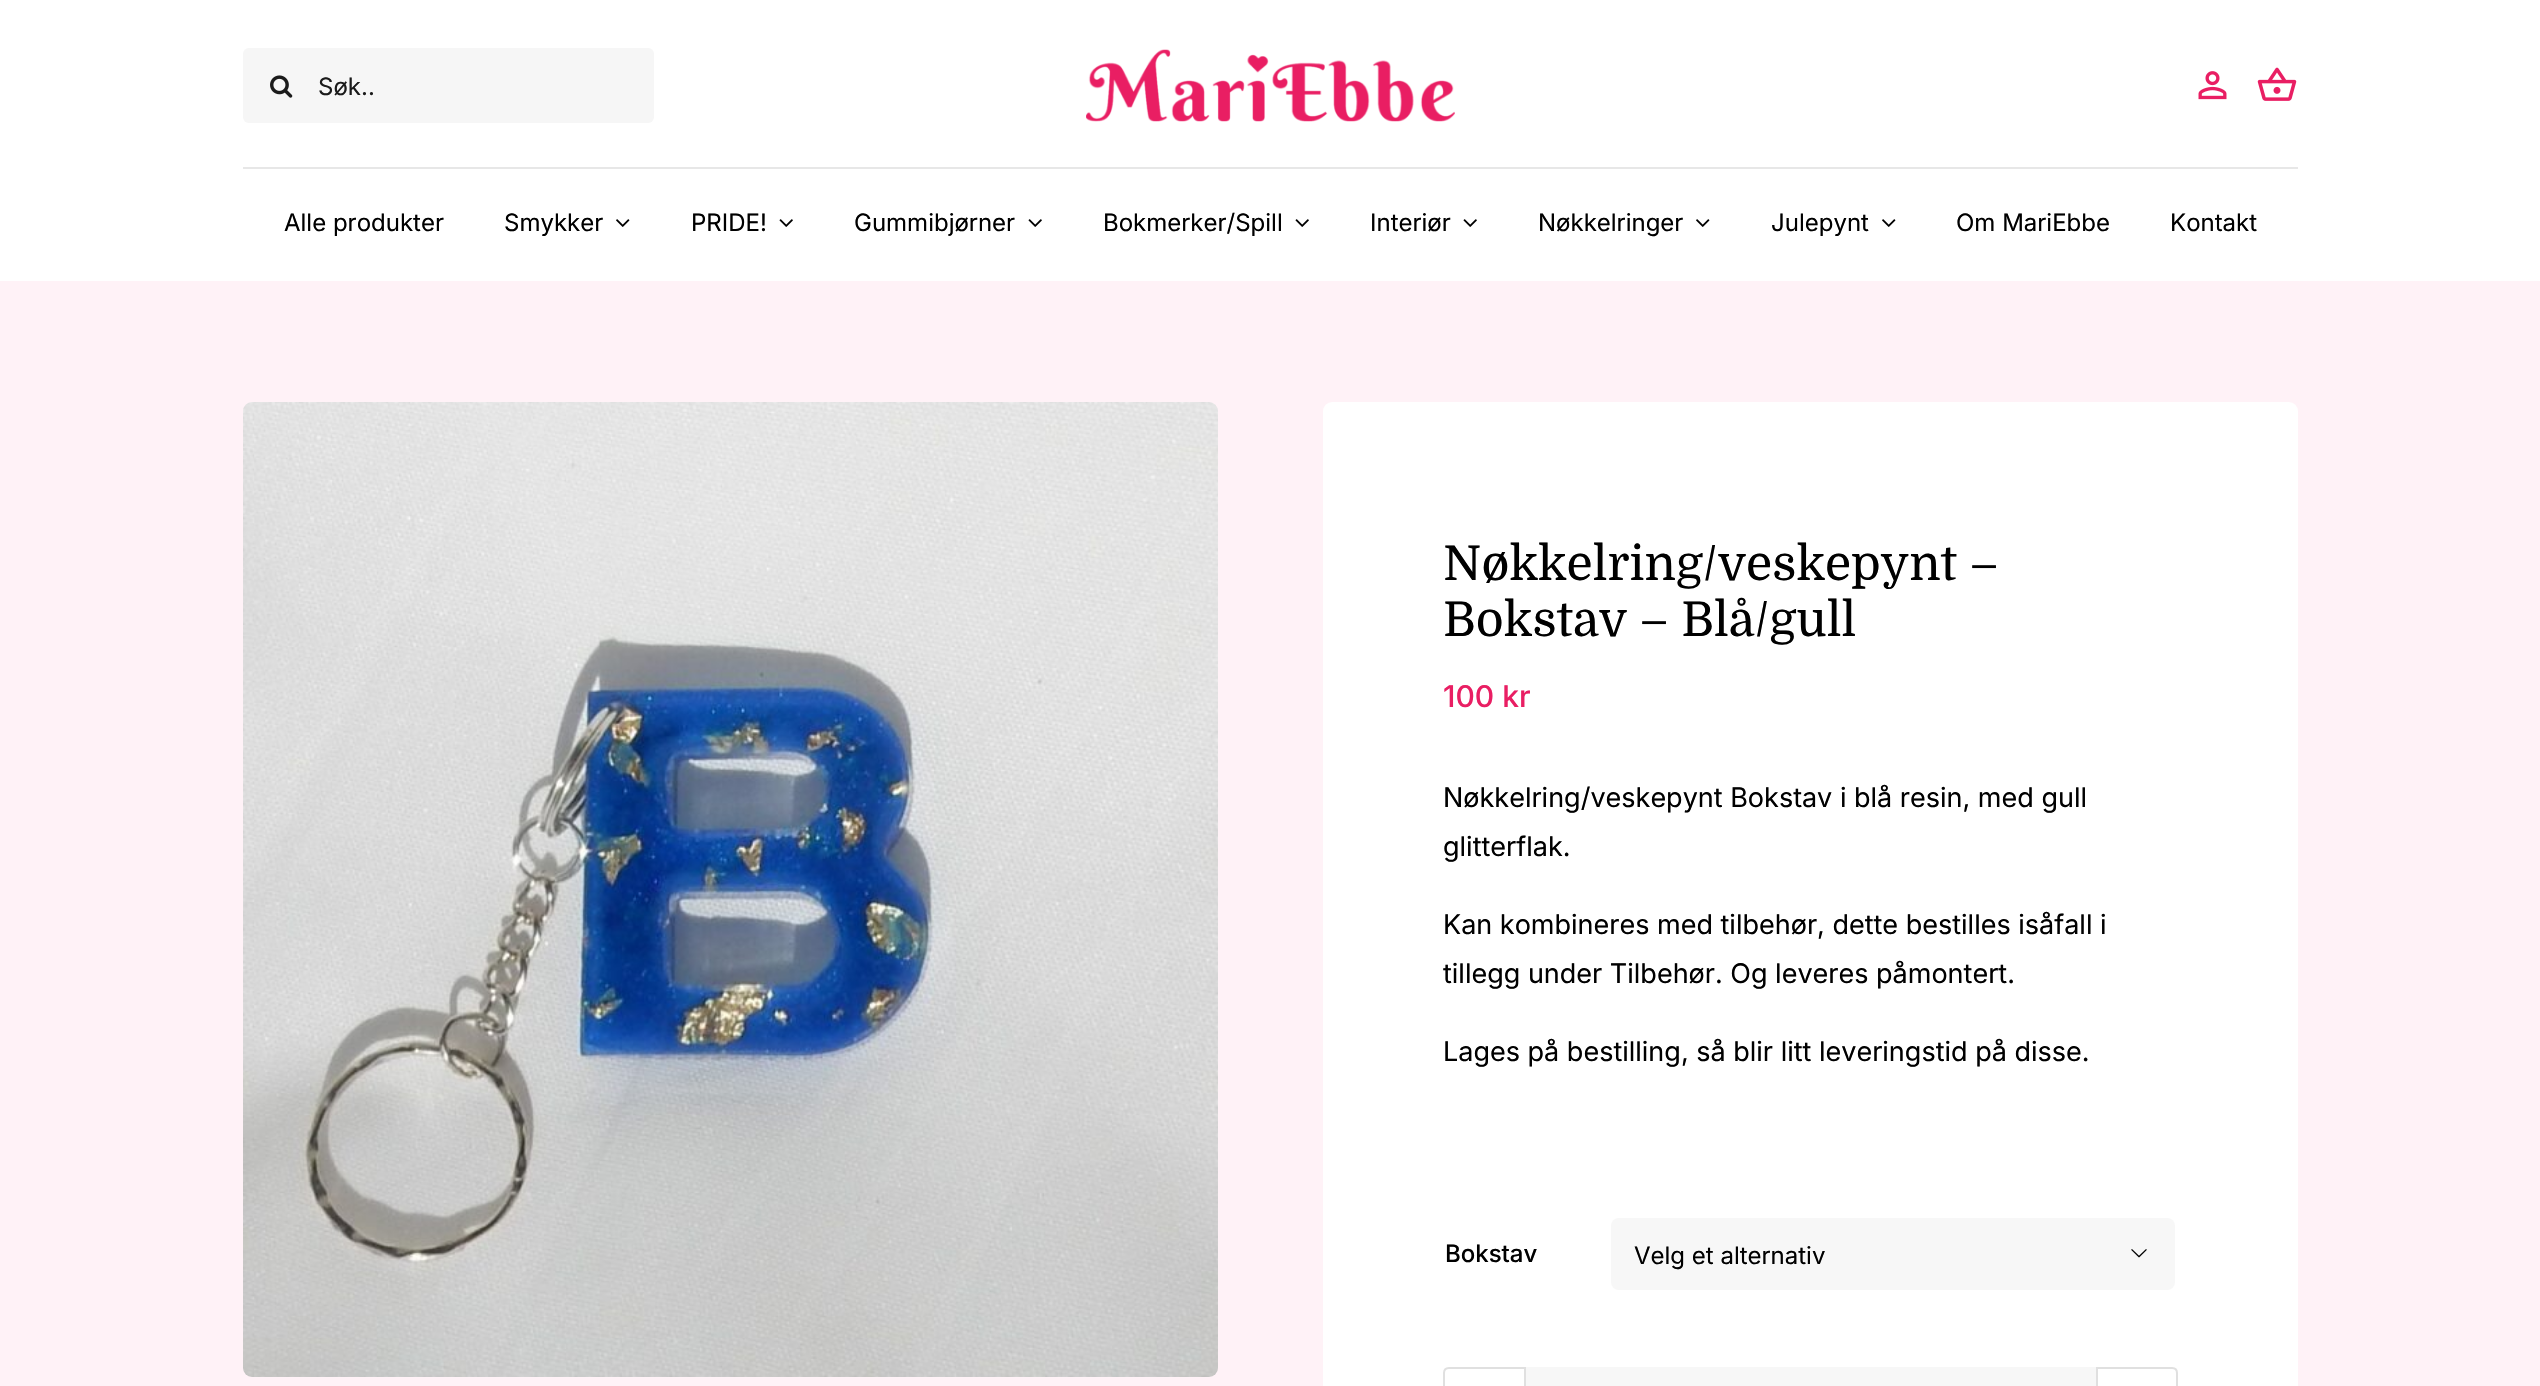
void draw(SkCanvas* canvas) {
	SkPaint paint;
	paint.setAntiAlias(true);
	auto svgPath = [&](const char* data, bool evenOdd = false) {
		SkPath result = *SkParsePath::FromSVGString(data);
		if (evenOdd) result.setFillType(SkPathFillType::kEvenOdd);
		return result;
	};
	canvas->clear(0xffffffff);
	paint.setColor(0xfff6f6f6);
	canvas->drawRoundRect(SkRect::MakeXYWH(243, 48, 411, 75), 6, 6, paint);
	canvas->drawImageRect(SkImages::DeferredFromEncodedData(SkData::MakeFromFileName("img1.png")), SkRect::MakeXYWH(270, 75, 23, 23), SkSamplingOptions());
	SkFont f1(fontMgr->matchFamilyStyle("Inter", SkFontStyle::Normal()), 24);
	f1.setSubpixel(true);
	paint.setColor(0xff1b1b1b);
	canvas->drawString("Søk..", 318, 95, f1, paint);
	canvas->drawImageRect(SkImages::DeferredFromEncodedData(SkData::MakeFromFileName("img2.png")), SkRect::MakeXYWH(1086, 49, 369, 73), SkSamplingOptions());
	canvas->drawImageRect(SkImages::DeferredFromEncodedData(SkData::MakeFromFileName("img3.png")), SkRect::MakeXYWH(2198, 71, 29, 29), SkSamplingOptions());
	canvas->drawImageRect(SkImages::DeferredFromEncodedData(SkData::MakeFromFileName("img4.png")), SkRect::MakeXYWH(2257, 67, 40, 34), SkSamplingOptions());
	paint.setColor(0xffe7e7e7);
	canvas->drawRect(SkRect::MakeXYWH(243, 167, 2055, 2), paint);
	paint.setColor(0xff000000);
	canvas->drawString("Alle produkter", 284, 231, f1, paint);
	canvas->drawString("Smykker", 504, 231, f1, paint);
	canvas->drawImageRect(SkImages::DeferredFromEncodedData(SkData::MakeFromFileName("img5.png")), SkRect::MakeXYWH(616, 219, 14, 8), SkSamplingOptions());
	canvas->drawString("PRIDE!", 691, 231, f1, paint);
	canvas->drawImageRect(SkImages::DeferredFromEncodedData(SkData::MakeFromFileName("img6.png")), SkRect::MakeXYWH(779, 219, 14, 8), SkSamplingOptions());
	canvas->drawString("Gummibjørner", 854, 231, f1, paint);
	canvas->drawImageRect(SkImages::DeferredFromEncodedData(SkData::MakeFromFileName("img6.png")), SkRect::MakeXYWH(1028, 219, 14, 8), SkSamplingOptions());
	canvas->drawString("Bokmerker/Spill", 1103, 231, f1, paint);
	canvas->drawImageRect(SkImages::DeferredFromEncodedData(SkData::MakeFromFileName("img6.png")), SkRect::MakeXYWH(1295, 219, 14, 8), SkSamplingOptions());
	canvas->drawString("Interiør", 1370, 231, f1, paint);
	canvas->drawImageRect(SkImages::DeferredFromEncodedData(SkData::MakeFromFileName("img6.png")), SkRect::MakeXYWH(1463, 219, 14, 8), SkSamplingOptions());
	canvas->drawString("Nøkkelringer", 1538, 231, f1, paint);
	canvas->drawImageRect(SkImages::DeferredFromEncodedData(SkData::MakeFromFileName("img5.png")), SkRect::MakeXYWH(1696, 219, 14, 8), SkSamplingOptions());
	canvas->drawString("Julepynt", 1771, 231, f1, paint);
	canvas->drawImageRect(SkImages::DeferredFromEncodedData(SkData::MakeFromFileName("img5.png")), SkRect::MakeXYWH(1882, 219, 14, 8), SkSamplingOptions());
	canvas->drawString("Om MariEbbe", 1956, 231, f1, paint);
	canvas->drawString("Kontakt", 2170, 231, f1, paint);
	paint.setColor(0xfffff2f7);
	canvas->drawRect(SkRect::MakeXYWH(0, 281, 2540, 1105), paint);
	canvas->drawImageRect(SkImages::DeferredFromEncodedData(SkData::MakeFromFileName("img7.png")), SkRect::MakeXYWH(243, 402, 975, 975), SkSamplingOptions());
	paint.setColor(0xffffffff);
	canvas->drawRoundRect(SkRect::MakeXYWH(1323, 402, 975, 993), 9, 9, paint);
	SkFont f2(fontMgr->matchFamilyStyle("Domine", SkFontStyle::Normal()), 48);
	f2.setSubpixel(true);
	paint.setColor(0xff000000);
	canvas->drawString("Nøkkelring/veskepynt –", 1443, 580, f2, paint);
	canvas->drawString("Bokstav – Blå/gull", 1443, 636, f2, paint);
	SkFont f3(fontMgr->matchFamilyStyle("Inter", SkFontStyle(500, SkFontStyle::kNormal_Width, SkFontStyle::kUpright_Slant)), 30);
	f3.setSubpixel(true);
	paint.setColor(0xffe91e63);
	canvas->drawString("100 kr", 1443, 707, f3, paint);
	SkFont f4(fontMgr->matchFamilyStyle("Inter", SkFontStyle::Normal()), 27);
	f4.setSubpixel(true);
	paint.setColor(0xff000000);
	canvas->drawString("Nøkkelring/veskepynt Bokstav i blå resin, med gull", 1443, 807, f4, paint);
	canvas->drawString("glitterflak.", 1443, 856, f4, paint);
	canvas->drawString("Kan kombineres med tilbehør, dette bestilles isåfall i", 1443, 934, f4, paint);
	canvas->drawString("tillegg under Tilbehør. Og leveres påmontert.", 1443, 983, f4, paint);
	canvas->drawString("Lages på bestilling, så blir litt leveringstid på disse.", 1443, 1061, f4, paint);
	SkFont f5(fontMgr->matchFamilyStyle("Inter", SkFontStyle(500, SkFontStyle::kNormal_Width, SkFontStyle::kUpright_Slant)), 24);
	f5.setSubpixel(true);
	canvas->drawString("Bokstav", 1445, 1262, f5, paint);
	paint.setColor(0xfff7f7f7);
	canvas->drawRoundRect(SkRect::MakeXYWH(1611, 1218, 564, 72), 8, 8, paint);
	paint.setColor(0xff000000);
	canvas->drawString("Velg et alternativ", 1634, 1264, f1, paint);
	canvas->drawImageRect(SkImages::DeferredFromEncodedData(SkData::MakeFromFileName("img8.png")), SkRect::MakeXYWH(2131, 1249, 16, 9), SkSamplingOptions());
	paint.setStroke(true);
	paint.setStrokeWidth(2);
	paint.setColor(0xffe0e0e0);
	canvas->drawPath(svgPath("M1449 1368H1525V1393H1449C1446 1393 1444 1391 1444 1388V1373C1444 1370 1446 1368 1449 1368Z"), paint);
	paint.setStroke(false);
	paint.setColor(0xfff7f7f7);
	canvas->drawRect(SkRect::MakeXYWH(1526, 1367, 570, 19), paint);
	paint.setStroke(true);
	paint.setColor(0xffe0e0e0);
	canvas->drawPath(svgPath("M2097 1368H2172C2175 1368 2177 1370 2177 1373V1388C2177 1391 2175 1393 2172 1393H2097Z"), paint);
}
